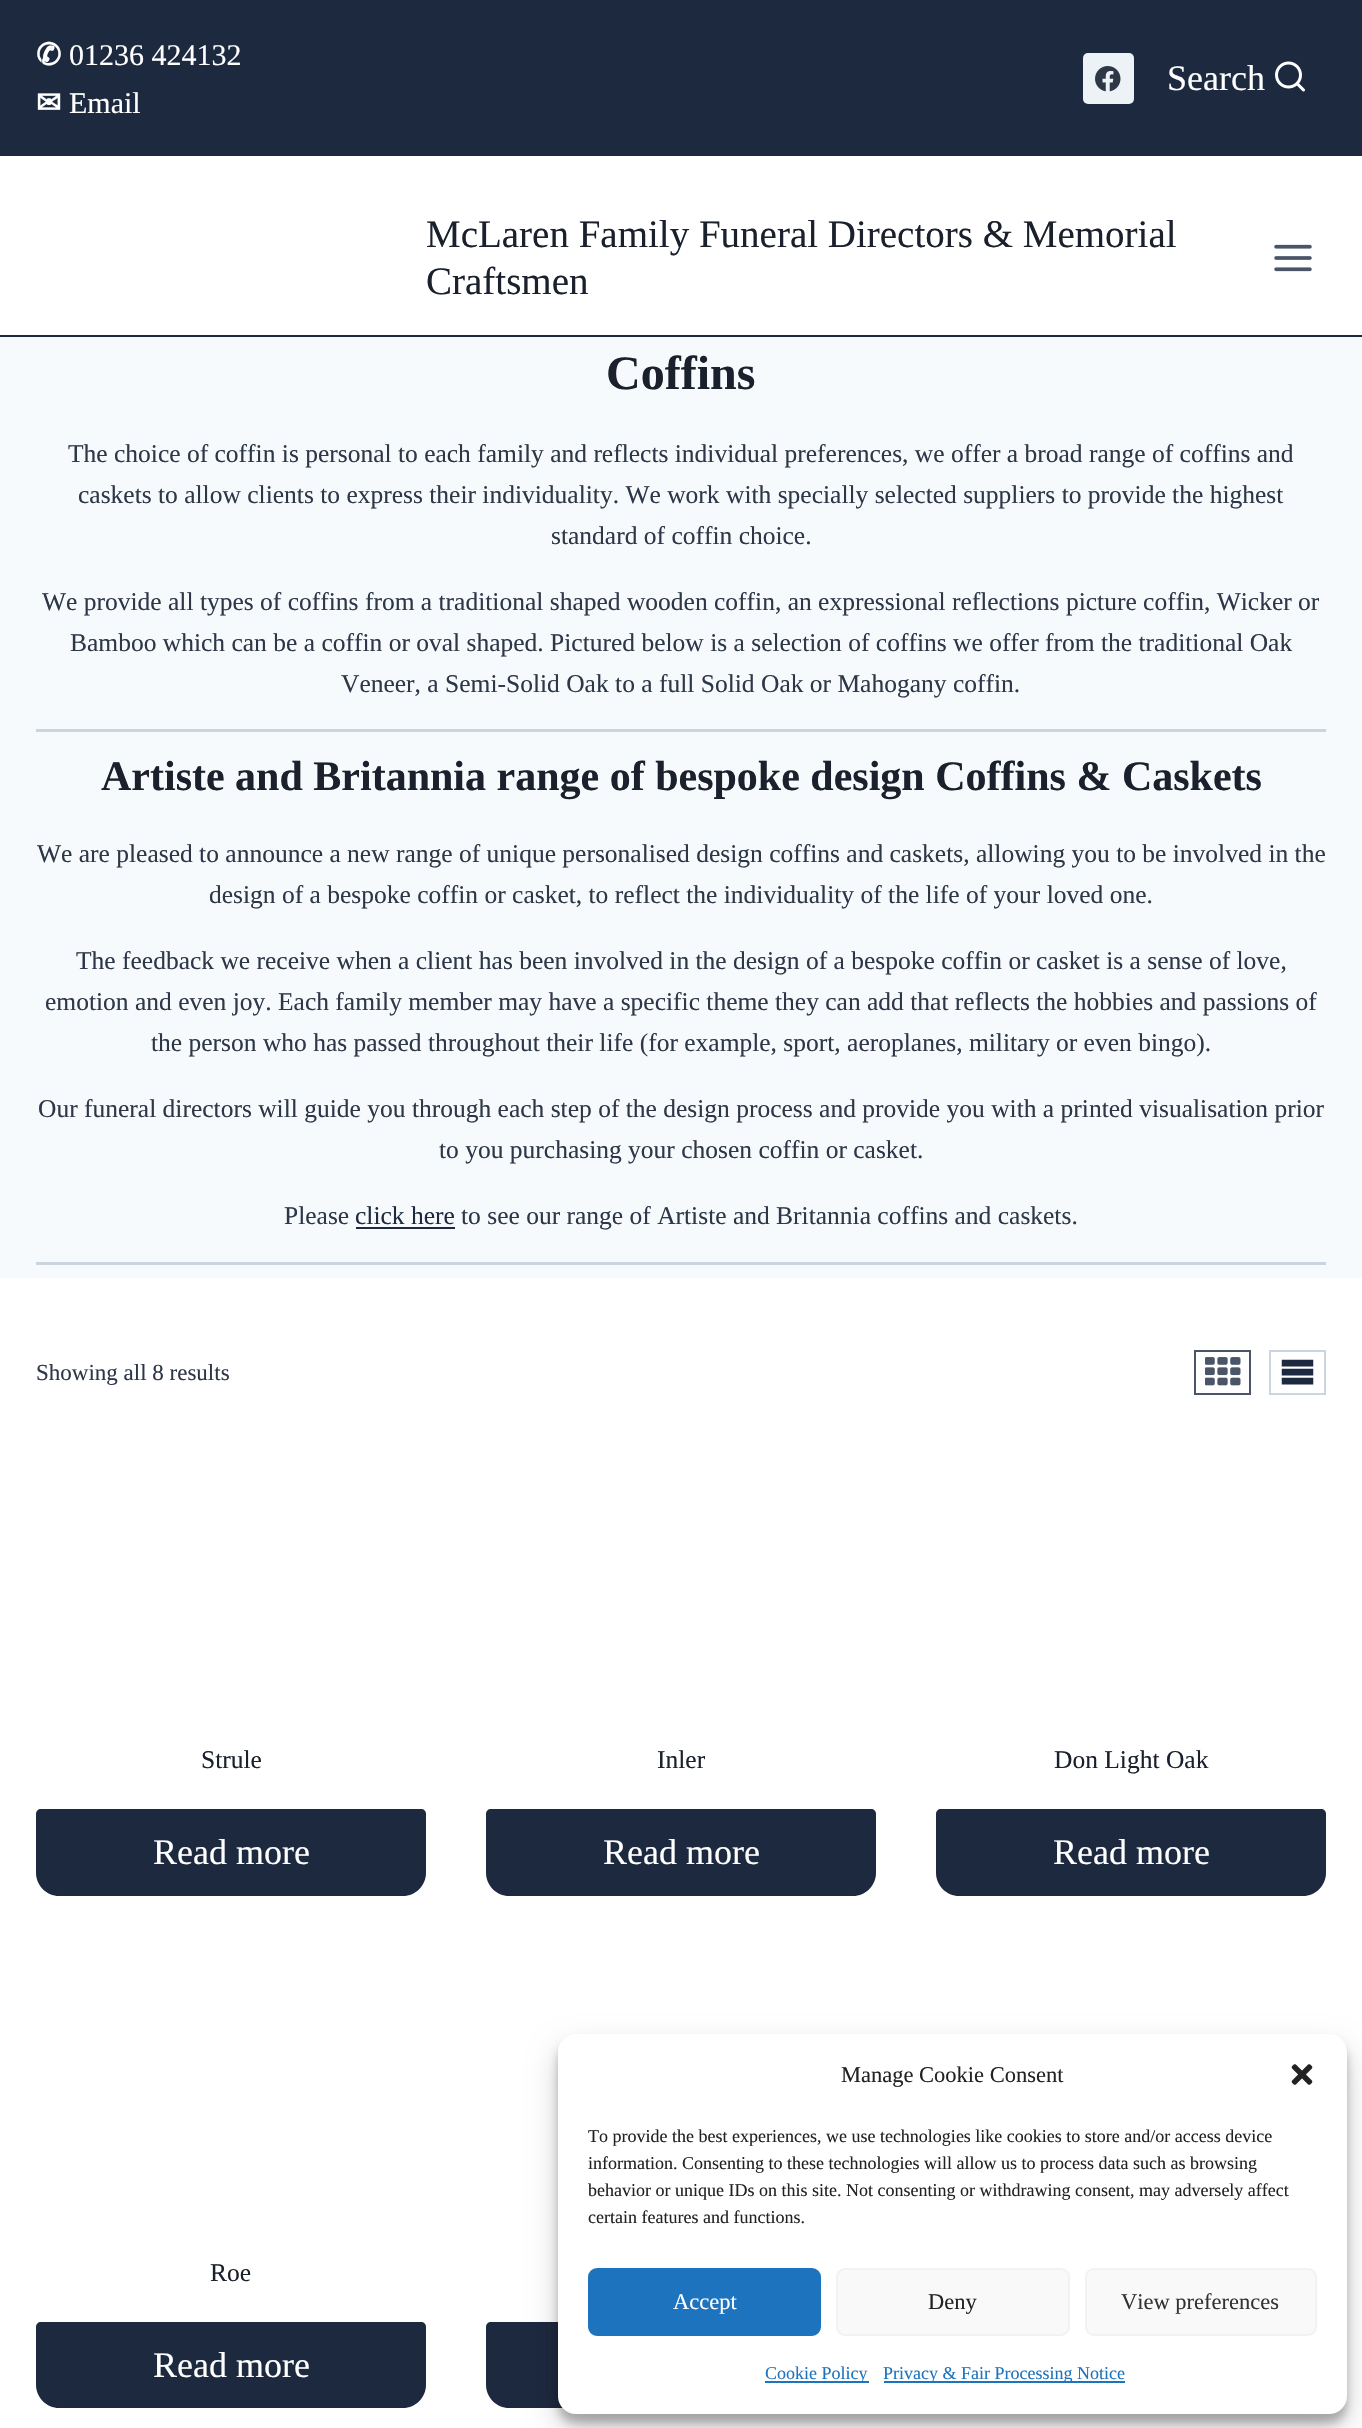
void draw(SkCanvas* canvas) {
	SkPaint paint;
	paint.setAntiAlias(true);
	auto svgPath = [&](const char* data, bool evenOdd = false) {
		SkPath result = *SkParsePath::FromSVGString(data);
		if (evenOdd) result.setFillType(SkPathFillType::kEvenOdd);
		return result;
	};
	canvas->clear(0xffffffff);
	paint.setColor(0xff1d293f);
	canvas->drawRect(SkRect::MakeXYWH(0, 0, 1362, 156), paint);
	SkFont f1(fontMgr->matchFamilyStyle("DejaVu Sans", SkFontStyle::Bold()), 30);
	f1.setSubpixel(true);
	paint.setColor(0xffffffff);
	canvas->drawString("✆", 36, 65, f1, paint);
	SkFont f2(fontMgr->matchFamilyStyle("Liberation Serif", SkFontStyle::Normal()), 30);
	f2.setSubpixel(true);
	canvas->drawString("01236 424132", 69, 65, f2, paint);
	canvas->drawString("✉", 36, 113, f1, paint);
	canvas->drawString("Email", 69, 113, f2, paint);
	paint.setColor(0xffedf2f7);
	canvas->drawRoundRect(SkRect::MakeXYWH(1083, 53, 51, 51), 5, 5, paint);
	canvas->drawImageRect(SkImages::DeferredFromEncodedData(SkData::MakeFromFileName("img1.png")), SkRect::MakeXYWH(1095, 66, 26, 26), SkSamplingOptions());
	SkFont f3(fontMgr->matchFamilyStyle("Liberation Serif", SkFontStyle::Normal()), 36);
	f3.setSubpixel(true);
	paint.setColor(0xffffffff);
	canvas->drawString("Search", 1167, 90, f3, paint);
	canvas->drawImageRect(SkImages::DeferredFromEncodedData(SkData::MakeFromFileName("img2.png")), SkRect::MakeXYWH(1275, 61, 30, 31), SkSamplingOptions());
	paint.setColor(0xff1d293f);
	canvas->drawRect(SkRect::MakeXYWH(0, 335, 1362, 2), paint);
	SkFont f4(fontMgr->matchFamilyStyle("Liberation Serif", SkFontStyle::Normal()), 39);
	f4.setSubpixel(true);
	paint.setColor(0xff1a202c);
	canvas->drawString("McLaren Family Funeral Directors & Memorial", 426, 247, f4, paint);
	canvas->drawString("Craftsmen", 426, 294, f4, paint);
	canvas->drawImageRect(SkImages::DeferredFromEncodedData(SkData::MakeFromFileName("img3.png")), SkRect::MakeXYWH(1274, 244, 38, 28), SkSamplingOptions());
	paint.setColor(0xfff7fafc);
	canvas->drawRect(SkRect::MakeXYWH(0, 337, 1362, 941), paint);
	SkFont f5(fontMgr->matchFamilyStyle("Liberation Serif", SkFontStyle::Bold()), 48);
	f5.setSubpixel(true);
	paint.setColor(0xff1a202c);
	canvas->drawString("Coffins", 606, 389, f5, paint);
	SkFont f6(fontMgr->matchFamilyStyle("Liberation Serif", SkFontStyle::Normal()), 25.5);
	f6.setSubpixel(true);
	paint.setColor(0xff2d3748);
	canvas->drawString("The choice of coffin is personal to each family and reflects individual preferences, we offer a broad range of coffins and", 68, 462, f6, paint);
	canvas->drawString("caskets to allow clients to express their individuality. We work with specially selected suppliers to provide the highest", 78, 503, f6, paint);
	canvas->drawString("standard of coffin choice.", 551, 544, f6, paint);
	canvas->drawString("We provide all types of coffins from a traditional shaped wooden coffin, an expressional reflections picture coffin, Wicker or", 42, 610, f6, paint);
	canvas->drawString("Bamboo which can be a coffin or oval shaped. Pictured below is a selection of coffins we offer from the traditional Oak", 70, 651, f6, paint);
	canvas->drawString("Veneer, a Semi-Solid Oak to a full Solid Oak or Mahogany coffin.", 341, 692, f6, paint);
	paint.setColor(0xffcbd5e0);
	canvas->drawRect(SkRect::MakeXYWH(36, 729, 1290, 3), paint);
	SkFont f7(fontMgr->matchFamilyStyle("Liberation Serif", SkFontStyle::Bold()), 42);
	f7.setSubpixel(true);
	paint.setColor(0xff1a202c);
	canvas->drawString("Artiste and Britannia range of bespoke design Coffins & Caskets", 101, 790, f7, paint);
	paint.setColor(0xff2d3748);
	canvas->drawString("We are pleased to announce a new range of unique personalised design coffins and caskets, allowing you to be involved in the", 37, 862, f6, paint);
	canvas->drawString("design of a bespoke coffin or casket, to reflect the individuality of the life of your loved one.", 209, 903, f6, paint);
	canvas->drawString("The feedback we receive when a client has been involved in the design of a bespoke coffin or casket is a sense of love,", 76, 969, f6, paint);
	canvas->drawString("emotion and even joy. Each family member may have a specific theme they can add that reflects the hobbies and passions of", 45, 1010, f6, paint);
	canvas->drawString("the person who has passed throughout their life (for example, sport, aeroplanes, military or even bingo).", 151, 1051, f6, paint);
	canvas->drawString("Our funeral directors will guide you through each step of the design process and provide you with a printed visualisation prior", 38, 1117, f6, paint);
	canvas->drawString("to you purchasing your chosen coffin or casket.", 439, 1158, f6, paint);
	canvas->drawString("Please", 284, 1224, f6, paint);
	paint.setColor(0xff1d293f);
	canvas->drawString("click here", 355, 1224, f6, paint);
	canvas->drawRect(SkRect::MakeXYWH(356, 1227, 99, 2), paint);
	paint.setColor(0xff2d3748);
	canvas->drawString("to see our range of Artiste and Britannia coffins and caskets.", 461, 1224, f6, paint);
	paint.setColor(0xffcbd5e0);
	canvas->drawRect(SkRect::MakeXYWH(36, 1262, 1290, 3), paint);
	SkFont f8(fontMgr->matchFamilyStyle("Liberation Serif", SkFontStyle::Normal()), 23);
	f8.setSubpixel(true);
	paint.setColor(0xff2d3748);
	canvas->drawString("Showing all 8 results", 36, 1380, f8, paint);
	paint.setStroke(true);
	paint.setStrokeWidth(2);
	paint.setColor(0xff4a5568);
	canvas->drawRect(SkRect::MakeXYWH(1195, 1351, 55, 43), paint);
	canvas->drawImageRect(SkImages::DeferredFromEncodedData(SkData::MakeFromFileName("img4.png")), SkRect::MakeXYWH(1205, 1357, 36, 29), SkSamplingOptions());
	paint.setColor(0xffcbd5e0);
	canvas->drawRect(SkRect::MakeXYWH(1270, 1351, 55, 43), paint);
	canvas->drawImageRect(SkImages::DeferredFromEncodedData(SkData::MakeFromFileName("img5.png")), SkRect::MakeXYWH(1281, 1359, 33, 26), SkSamplingOptions());
	paint.setStroke(false);
	paint.setColor(0xff1a202c);
	canvas->drawString("Strule", 201, 1768, f6, paint);
	paint.setColor(0xff1d293f);
	canvas->drawPath(svgPath("M41 1809H421C424 1809 426 1811 426 1814V1873C426 1885.5 415.5 1896 403 1896H59C46.5 1896 36 1885.5 36 1873V1814C36 1811 38 1809 41 1809Z"), paint);
	paint.setColor(0xffffffff);
	canvas->drawString("Read more", 153, 1864, f3, paint);
	paint.setColor(0xff1a202c);
	canvas->drawString("Inler", 657, 1768, f6, paint);
	paint.setColor(0xff1d293f);
	canvas->drawPath(svgPath("M491 1809H871C874 1809 876 1811 876 1814V1873C876 1885.5 865.5 1896 853 1896H509C496.5 1896 486 1885.5 486 1873V1814C486 1811 488 1809 491 1809Z"), paint);
	paint.setColor(0xffffffff);
	canvas->drawString("Read more", 603, 1864, f3, paint);
	paint.setColor(0xff1a202c);
	canvas->drawString("Don Light Oak", 1054, 1768, f6, paint);
	paint.setColor(0xff1d293f);
	canvas->drawPath(svgPath("M941 1809H1321C1324 1809 1326 1811 1326 1814V1873C1326 1885.5 1315.5 1896 1303 1896H959C946.5 1896 936 1885.5 936 1873V1814C936 1811 938 1809 941 1809Z"), paint);
	paint.setColor(0xffffffff);
	canvas->drawString("Read more", 1053, 1864, f3, paint);
	paint.setColor(0xff1a202c);
	canvas->drawString("Roe", 210, 2281, f6, paint);
	paint.setColor(0xff1d293f);
	canvas->drawPath(svgPath("M41 2322H421C424 2322 426 2324 426 2327V2385C426 2397.5 415.5 2408 403 2408H59C46.5 2408 36 2397.5 36 2385V2327C36 2324 38 2322 41 2322Z"), paint);
	paint.setColor(0xffffffff);
	canvas->drawString("Read more", 153, 2377, f3, paint);
	paint.setColor(0xff1d293f);
	canvas->drawPath(svgPath("M491 2322H871C874 2322 876 2324 876 2327V2385C876 2397.5 865.5 2408 853 2408H509C496.5 2408 486 2397.5 486 2385V2327C486 2324 488 2322 491 2322Z"), paint);
	paint.setColor(0x3b000000);
	paint.setMaskFilter(SkMaskFilter::MakeBlur(kNormal_SkBlurStyle, 4.5));
	canvas->drawRoundRect(SkRect::MakeXYWH(558, 2043, 789, 380), 18, 18, paint);
	paint.setMaskFilter(nullptr);
	paint.setColor(0x30000000);
	paint.setMaskFilter(SkMaskFilter::MakeBlur(kNormal_SkBlurStyle, 15));
	canvas->drawRoundRect(SkRect::MakeXYWH(558, 2049, 789, 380), 18, 18, paint);
	paint.setMaskFilter(nullptr);
	paint.setColor(0xffffffff);
	canvas->drawRoundRect(SkRect::MakeXYWH(558, 2034, 789, 380), 18, 18, paint);
	SkFont f9(fontMgr->matchFamilyStyle("Liberation Serif", SkFontStyle::Normal()), 22.5);
	f9.setSubpixel(true);
	paint.setColor(0xff222222);
	canvas->drawString("Manage Cookie Consent", 841, 2082, f9, paint);
	canvas->drawImageRect(SkImages::DeferredFromEncodedData(SkData::MakeFromFileName("img6.png")), SkRect::MakeXYWH(1291, 2064, 22, 21), SkSamplingOptions());
	SkFont f10(fontMgr->matchFamilyStyle("Liberation Serif", SkFontStyle::Normal()), 18);
	f10.setSubpixel(true);
	canvas->drawString("To provide the best experiences, we use technologies like cookies to store and/or access device", 588, 2142, f10, paint);
	canvas->drawString("information. Consenting to these technologies will allow us to process data such as browsing", 588, 2169, f10, paint);
	canvas->drawString("behavior or unique IDs on this site. Not consenting or withdrawing consent, may adversely affect", 588, 2196, f10, paint);
	canvas->drawString("certain features and functions.", 588, 2223, f10, paint);
	paint.setColor(0xff1e73be);
	canvas->drawRoundRect(SkRect::MakeXYWH(589, 2269, 231, 66), 8, 8, paint);
	paint.setStroke(true);
	canvas->drawRoundRect(SkRect::MakeXYWH(589, 2269, 231, 66), 8, 8, paint);
	paint.setStroke(false);
	paint.setColor(0xffffffff);
	canvas->drawString("Accept", 673, 2309, f9, paint);
	paint.setColor(0xfff9f9f9);
	canvas->drawRoundRect(SkRect::MakeXYWH(837, 2269, 232, 66), 8, 8, paint);
	paint.setStroke(true);
	paint.setColor(0xfff2f2f2);
	canvas->drawRoundRect(SkRect::MakeXYWH(837, 2269, 232, 66), 8, 8, paint);
	paint.setStroke(false);
	paint.setColor(0xff222222);
	canvas->drawString("Deny", 928, 2309, f9, paint);
	paint.setColor(0xfff9f9f9);
	canvas->drawRoundRect(SkRect::MakeXYWH(1086, 2269, 230, 66), 8, 8, paint);
	paint.setStroke(true);
	paint.setColor(0xfff2f2f2);
	canvas->drawRoundRect(SkRect::MakeXYWH(1086, 2269, 230, 66), 8, 8, paint);
	paint.setStroke(false);
	paint.setColor(0xff333333);
	canvas->drawString("View preferences", 1121, 2309, f9, paint);
	paint.setColor(0xff1e73be);
	canvas->drawRect(SkRect::MakeXYWH(765, 2381, 104, 2), paint);
	canvas->drawString("Cookie Policy", 765, 2379, f10, paint);
	canvas->drawRect(SkRect::MakeXYWH(884, 2381, 241, 2), paint);
	canvas->drawString("Privacy & Fair Processing Notice", 883, 2379, f10, paint);
}
